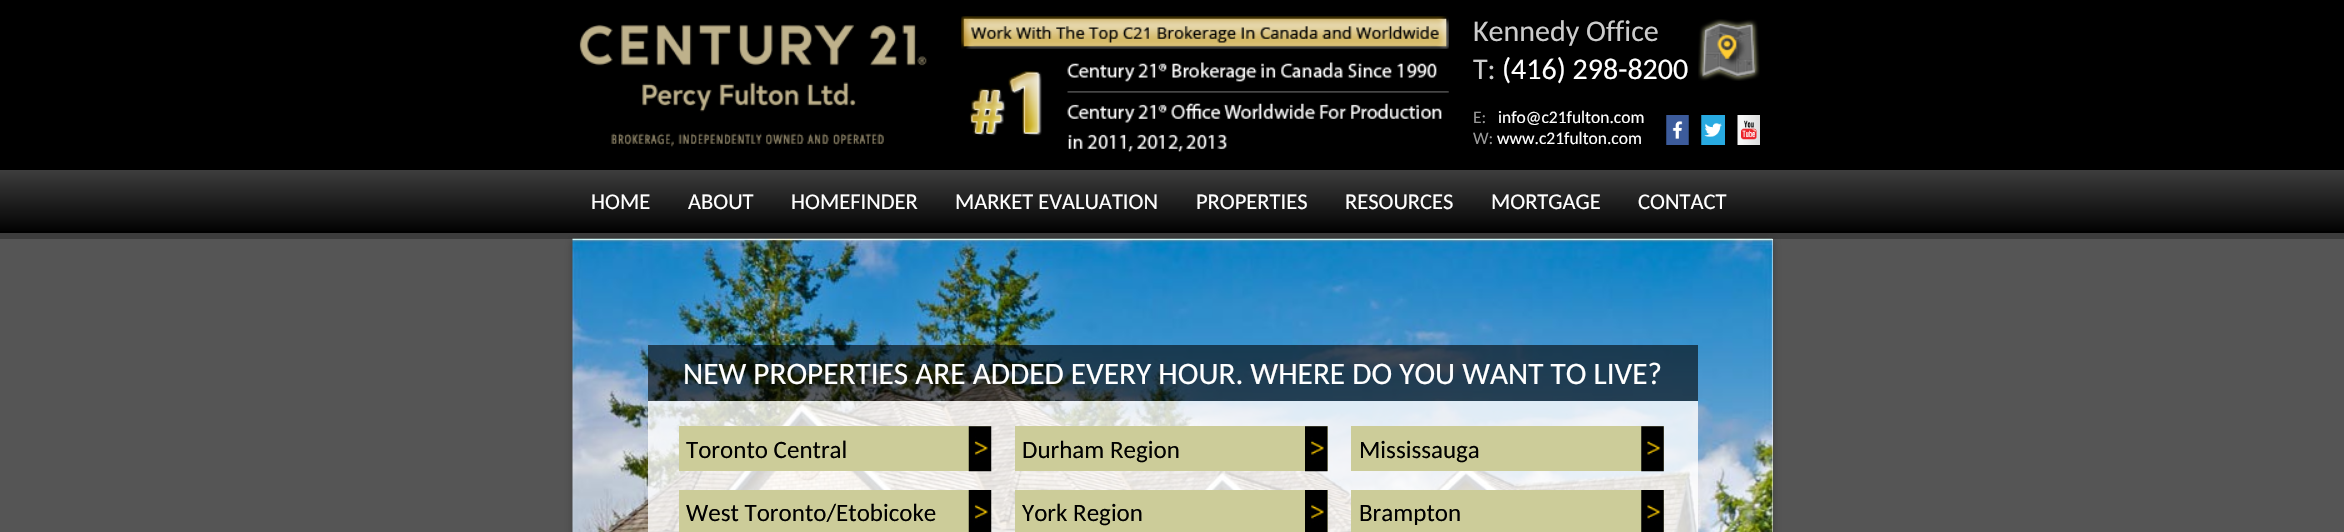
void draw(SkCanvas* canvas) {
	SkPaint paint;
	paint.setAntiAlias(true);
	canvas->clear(0xff000000);
	canvas->drawImageRect(SkImages::DeferredFromEncodedData(SkData::MakeFromFileName("img1.png")), SkRect::MakeXYWH(579, 16, 870, 136), SkSamplingOptions());
	canvas->drawImageRect(SkImages::DeferredFromEncodedData(SkData::MakeFromFileName("img2.png")), SkRect::MakeXYWH(1698, 19, 62, 62), SkSamplingOptions());
	SkFont f1(fontMgr->matchFamilyStyle("Carlito", SkFontStyle::Normal()), 30);
	f1.setSubpixel(true);
	paint.setColor(0xffcccccc);
	canvas->drawString("Kennedy Office", 1473, 41, f1, paint);
	canvas->drawString("T:", 1473, 79, f1, paint);
	paint.setColor(0xffffffff);
	canvas->drawString("(416) 298-8200", 1502, 79, f1, paint);
	SkFont f2(fontMgr->matchFamilyStyle("Carlito", SkFontStyle::Normal()), 17.5);
	f2.setSubpixel(true);
	paint.setColor(0xff999999);
	canvas->drawString("E:", 1473, 123, f2, paint);
	paint.setColor(0xffffffff);
	canvas->drawString("info@c21fulton.com", 1498, 123, f2, paint);
	paint.setColor(0xff999999);
	canvas->drawString("W:", 1473, 144, f2, paint);
	paint.setColor(0xffffffff);
	canvas->drawString("www.c21fulton.com", 1497, 144, f2, paint);
	canvas->drawImageRect(SkImages::DeferredFromEncodedData(SkData::MakeFromFileName("img3.png")), SkRect::MakeXYWH(1666, 115, 23, 30), SkSamplingOptions());
	canvas->drawImageRect(SkImages::DeferredFromEncodedData(SkData::MakeFromFileName("img4.png")), SkRect::MakeXYWH(1701, 115, 24, 30), SkSamplingOptions());
	canvas->drawImageRect(SkImages::DeferredFromEncodedData(SkData::MakeFromFileName("img5.png")), SkRect::MakeXYWH(1737, 115, 23, 30), SkSamplingOptions());
	{
		const SkColor colors[] = {0xff3d3d3d, 0xff010101};
		const float stops[] = {0, 1};
		const SkPoint ends[] = {{1173, 170}, {1173, 233}};
		paint.setShader(SkGradientShader::MakeLinear(ends, colors, stops, 2, SkTileMode::kClamp));
		paint.setAlpha(255);
	}
	canvas->drawRect(SkRect::MakeXYWH(0, 170, 2344, 61), paint);
	paint.setShader(nullptr);
	paint.setColor(0xff3d3d3d);
	canvas->drawRect(SkRect::MakeXYWH(0, 233, 2344, 6), paint);
	SkFont f3(fontMgr->matchFamilyStyle("Carlito", SkFontStyle::Normal()), 22.5);
	f3.setSubpixel(true);
	paint.setColor(0xffffffff);
	canvas->drawString("HOME", 591, 209, f3, paint);
	canvas->drawString("ABOUT", 688, 209, f3, paint);
	canvas->drawString("HOMEFINDER", 791, 209, f3, paint);
	canvas->drawString("MARKET EVALUATION", 955, 209, f3, paint);
	canvas->drawString("PROPERTIES", 1196, 209, f3, paint);
	canvas->drawString("RESOURCES", 1345, 209, f3, paint);
	canvas->drawString("MORTGAGE", 1491, 209, f3, paint);
	canvas->drawString("CONTACT", 1638, 209, f3, paint);
	paint.setColor(0xff555555);
	canvas->drawRect(SkRect::MakeXYWH(0, 239, 2344, 293), paint);
	paint.setColor(0x4d000000);
	paint.setMaskFilter(SkMaskFilter::MakeBlur(kNormal_SkBlurStyle, 4));
	canvas->drawRect(SkRect::MakeXYWH(573, 240, 1200, 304), paint);
	paint.setMaskFilter(nullptr);
	paint.setColor(0xffffffff);
	canvas->drawRect(SkRect::MakeXYWH(1772, 239, 1, 293), paint);
	canvas->drawImageRect(SkImages::DeferredFromEncodedData(SkData::MakeFromFileName("img6.png")), SkRect::MakeXYWH(572, 238, 1201, 294), SkSamplingOptions());
	paint.setColor(0x99000000);
	canvas->drawRect(SkRect::MakeXYWH(648, 345, 1050, 56), paint);
	SkFont f4(fontMgr->matchFamilyStyle("Carlito", SkFontStyle::Normal()), 31.25);
	f4.setSubpixel(true);
	paint.setColor(0xffffffff);
	canvas->drawString("NEW PROPERTIES ARE ADDED EVERY HOUR. WHERE DO YOU WANT TO LIVE?", 683, 384, f4, paint);
	paint.setColor(0xccffffff);
	canvas->drawRect(SkRect::MakeXYWH(648, 401, 1050, 131), paint);
	paint.setColor(0xffcccc99);
	canvas->drawRect(SkRect::MakeXYWH(679, 426, 312, 45), paint);
	canvas->drawImageRect(SkImages::DeferredFromEncodedData(SkData::MakeFromFileName("img7.png")), SkRect::MakeXYWH(968, 426, 24, 46), SkSamplingOptions());
	SkFont f5(fontMgr->matchFamilyStyle("Carlito", SkFontStyle::Normal()), 25);
	f5.setSubpixel(true);
	paint.setColor(0xff000000);
	canvas->drawString("Toronto Central", 686, 458, f5, paint);
	paint.setColor(0xffcccc99);
	canvas->drawRect(SkRect::MakeXYWH(679, 490, 290, 42), paint);
	canvas->drawImageRect(SkImages::DeferredFromEncodedData(SkData::MakeFromFileName("img8.png")), SkRect::MakeXYWH(968, 490, 24, 42), SkSamplingOptions());
	paint.setColor(0xff000000);
	canvas->drawString("West Toronto/Etobicoke", 686, 521, f5, paint);
	paint.setColor(0xffcccc99);
	canvas->drawRect(SkRect::MakeXYWH(1015, 426, 313, 45), paint);
	canvas->drawImageRect(SkImages::DeferredFromEncodedData(SkData::MakeFromFileName("img9.png")), SkRect::MakeXYWH(1305, 426, 23, 46), SkSamplingOptions());
	paint.setColor(0xff000000);
	canvas->drawString("Durham Region", 1022, 458, f5, paint);
	paint.setColor(0xffcccc99);
	canvas->drawRect(SkRect::MakeXYWH(1015, 490, 313, 42), paint);
	canvas->drawImageRect(SkImages::DeferredFromEncodedData(SkData::MakeFromFileName("img10.png")), SkRect::MakeXYWH(1305, 490, 23, 42), SkSamplingOptions());
	paint.setColor(0xff000000);
	canvas->drawString("York Region", 1022, 521, f5, paint);
	paint.setColor(0xffcccc99);
	canvas->drawRect(SkRect::MakeXYWH(1351, 426, 313, 45), paint);
	canvas->drawImageRect(SkImages::DeferredFromEncodedData(SkData::MakeFromFileName("img11.png")), SkRect::MakeXYWH(1641, 426, 23, 46), SkSamplingOptions());
	paint.setColor(0xff000000);
	canvas->drawString("Mississauga", 1359, 458, f5, paint);
	paint.setColor(0xffcccc99);
	canvas->drawRect(SkRect::MakeXYWH(1351, 490, 313, 42), paint);
	canvas->drawImageRect(SkImages::DeferredFromEncodedData(SkData::MakeFromFileName("img12.png")), SkRect::MakeXYWH(1641, 490, 23, 42), SkSamplingOptions());
	paint.setColor(0xff000000);
	canvas->drawString("Brampton", 1359, 521, f5, paint);
}
